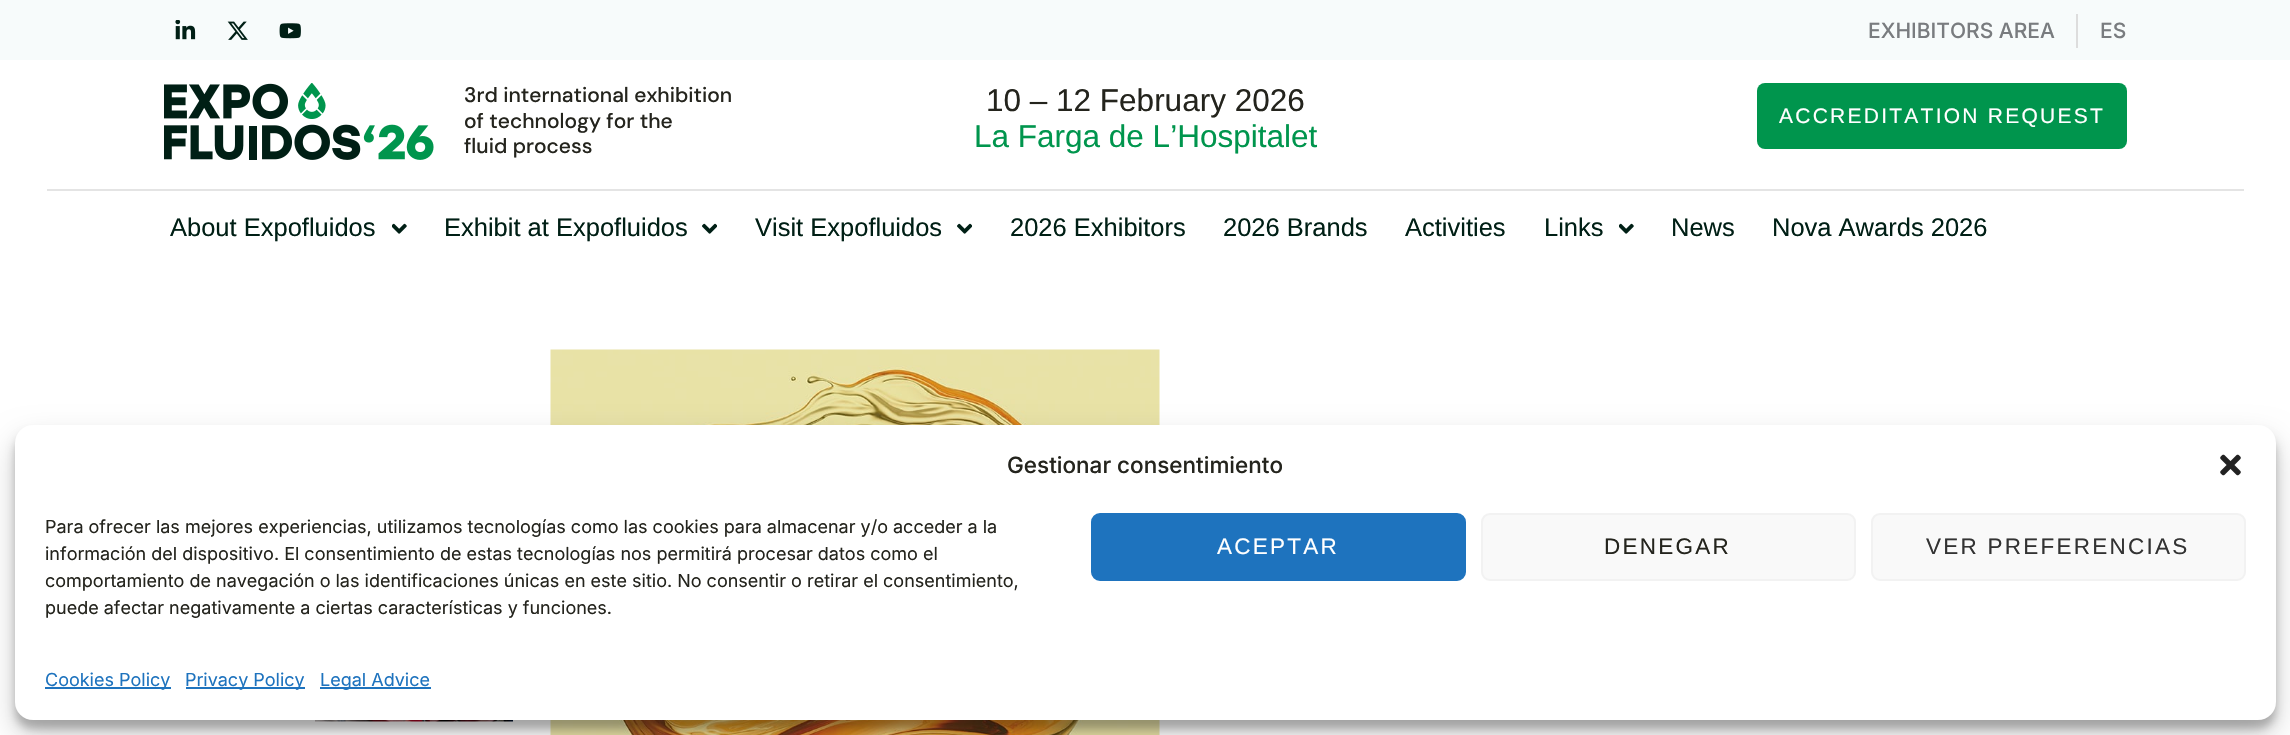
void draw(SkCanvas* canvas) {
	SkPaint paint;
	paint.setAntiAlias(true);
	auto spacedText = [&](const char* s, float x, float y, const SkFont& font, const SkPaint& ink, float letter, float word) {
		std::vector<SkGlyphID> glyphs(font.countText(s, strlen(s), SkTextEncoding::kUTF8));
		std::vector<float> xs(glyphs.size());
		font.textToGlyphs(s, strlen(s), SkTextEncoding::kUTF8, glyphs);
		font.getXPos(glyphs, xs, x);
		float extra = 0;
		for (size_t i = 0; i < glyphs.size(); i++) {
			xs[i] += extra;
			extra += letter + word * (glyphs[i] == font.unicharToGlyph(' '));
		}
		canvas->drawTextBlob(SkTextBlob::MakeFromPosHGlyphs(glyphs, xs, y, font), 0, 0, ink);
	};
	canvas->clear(0xffffffff);
	paint.setColor(0xfff7fbfb);
	canvas->drawRect(SkRect::MakeXYWH(0, 0, 2290, 60), paint);
	canvas->drawImageRect(SkImages::DeferredFromEncodedData(SkData::MakeFromFileName("img1.png")), SkRect::MakeXYWH(175, 20, 21, 20), SkSamplingOptions());
	canvas->drawImageRect(SkImages::DeferredFromEncodedData(SkData::MakeFromFileName("img2.png")), SkRect::MakeXYWH(227, 21, 21, 19), SkSamplingOptions());
	canvas->drawImageRect(SkImages::DeferredFromEncodedData(SkData::MakeFromFileName("img3.png")), SkRect::MakeXYWH(279, 23, 22, 16), SkSamplingOptions());
	SkFont f1(fontMgr->matchFamilyStyle("Inter", SkFontStyle(500, SkFontStyle::kNormal_Width, SkFontStyle::kUpright_Slant)), 21);
	f1.setSubpixel(true);
	paint.setColor(0xff797c7f);
	canvas->drawString("EXHIBITORS AREA", 1868, 38, f1, paint);
	paint.setColor(0xffdddddd);
	canvas->drawRect(SkRect::MakeXYWH(2076, 14, 2, 34), paint);
	paint.setColor(0xff797c7f);
	canvas->drawString("ES", 2100, 38, f1, paint);
	canvas->drawImageRect(SkImages::DeferredFromEncodedData(SkData::MakeFromFileName("img4.png")), SkRect::MakeXYWH(164, 83, 270, 77), SkSamplingOptions());
	SkFont f2(fontMgr->matchFamilyStyle("DM Sans", SkFontStyle(500, SkFontStyle::kNormal_Width, SkFontStyle::kUpright_Slant)), 21);
	f2.setSubpixel(true);
	paint.setColor(0xff24241d);
	canvas->drawString("3rd international exhibition", 464, 102, f2, paint);
	canvas->drawString("of technology for the", 464, 128, f2, paint);
	canvas->drawString("fluid process", 464, 153, f2, paint);
	SkFont f3(fontMgr->matchFamilyStyle("Liberation Sans", SkFontStyle::Normal()), 31.5);
	f3.setSubpixel(true);
	canvas->drawString("10 – 12 February 2026", 986, 111, f3, paint);
	paint.setColor(0xff00954d);
	canvas->drawString("La Farga de L’Hospitalet", 974, 147, f3, paint);
	canvas->drawRoundRect(SkRect::MakeXYWH(1757, 83, 370, 66), 8, 8, paint);
	SkFont f4(fontMgr->matchFamilyStyle("Liberation Sans", SkFontStyle::Normal()), 21);
	f4.setSubpixel(true);
	paint.setColor(0xffffffff);
	spacedText("ACCREDITATION REQUEST", 1779, 123, f4, paint, 2.25, 0);
	paint.setColor(0xffe4e4e4);
	canvas->drawRect(SkRect::MakeXYWH(47, 189, 2197, 2), paint);
	SkFont f5(fontMgr->matchFamilyStyle("Liberation Sans", SkFontStyle::Normal()), 25.5);
	f5.setSubpixel(true);
	paint.setColor(0xff001f15);
	canvas->drawString("About Expofluidos", 170, 236, f5, paint);
	canvas->drawImageRect(SkImages::DeferredFromEncodedData(SkData::MakeFromFileName("img5.png")), SkRect::MakeXYWH(392, 223, 15, 11), SkSamplingOptions());
	canvas->drawString("Exhibit at Expofluidos", 444, 236, f5, paint);
	canvas->drawImageRect(SkImages::DeferredFromEncodedData(SkData::MakeFromFileName("img6.png")), SkRect::MakeXYWH(702, 223, 15, 11), SkSamplingOptions());
	canvas->drawString("Visit Expofluidos", 755, 236, f5, paint);
	canvas->drawImageRect(SkImages::DeferredFromEncodedData(SkData::MakeFromFileName("img6.png")), SkRect::MakeXYWH(957, 223, 15, 11), SkSamplingOptions());
	canvas->drawString("2026 Exhibitors", 1010, 236, f5, paint);
	canvas->drawString("2026 Brands", 1223, 236, f5, paint);
	canvas->drawString("Activities", 1405, 236, f5, paint);
	canvas->drawString("Links", 1544, 236, f5, paint);
	canvas->drawImageRect(SkImages::DeferredFromEncodedData(SkData::MakeFromFileName("img5.png")), SkRect::MakeXYWH(1619, 223, 15, 11), SkSamplingOptions());
	canvas->drawString("News", 1671, 236, f5, paint);
	canvas->drawString("Nova Awards 2026", 1772, 236, f5, paint);
	canvas->drawImageRect(SkImages::DeferredFromEncodedData(SkData::MakeFromFileName("img7.png")), SkRect::MakeXYWH(315, 720, 198, 2), SkSamplingOptions());
	canvas->drawImageRect(SkImages::DeferredFromEncodedData(SkData::MakeFromFileName("img8.png")), SkRect::MakeXYWH(550, 349, 610, 386), SkSamplingOptions());
	paint.setColor(0x3b000000);
	paint.setMaskFilter(SkMaskFilter::MakeBlur(kNormal_SkBlurStyle, 4.5));
	canvas->drawRoundRect(SkRect::MakeXYWH(15, 434, 2261, 295), 18, 18, paint);
	paint.setMaskFilter(nullptr);
	paint.setColor(0x30000000);
	paint.setMaskFilter(SkMaskFilter::MakeBlur(kNormal_SkBlurStyle, 15));
	canvas->drawRoundRect(SkRect::MakeXYWH(15, 440, 2261, 295), 18, 18, paint);
	paint.setMaskFilter(nullptr);
	paint.setColor(0xffffffff);
	canvas->drawRoundRect(SkRect::MakeXYWH(15, 425, 2261, 295), 18, 18, paint);
	SkFont f6(fontMgr->matchFamilyStyle("Inter", SkFontStyle(500, SkFontStyle::kNormal_Width, SkFontStyle::kUpright_Slant)), 22.5);
	f6.setSubpixel(true);
	paint.setColor(0xff24241d);
	canvas->drawString("Gestionar consentimiento", 1007, 473, f6, paint);
	canvas->drawImageRect(SkImages::DeferredFromEncodedData(SkData::MakeFromFileName("img9.png")), SkRect::MakeXYWH(2220, 454, 21, 22), SkSamplingOptions());
	SkFont f7(fontMgr->matchFamilyStyle("Inter", SkFontStyle::Normal()), 18);
	f7.setSubpixel(true);
	canvas->drawString("Para ofrecer las mejores experiencias, utilizamos tecnologías como las cookies para almacenar y/o acceder a la", 45, 533, f7, paint);
	canvas->drawString("información del dispositivo. El consentimiento de estas tecnologías nos permitirá procesar datos como el", 45, 560, f7, paint);
	canvas->drawString("comportamiento de navegación o las identificaciones únicas en este sitio. No consentir o retirar el consentimiento,", 45, 587, f7, paint);
	canvas->drawString("puede afectar negativamente a ciertas características y funciones.", 45, 614, f7, paint);
	paint.setColor(0xff1e73be);
	canvas->drawRoundRect(SkRect::MakeXYWH(1092, 514, 373, 66), 8, 8, paint);
	paint.setStroke(true);
	paint.setStrokeWidth(2);
	canvas->drawRoundRect(SkRect::MakeXYWH(1092, 514, 373, 66), 8, 8, paint);
	SkFont f8(fontMgr->matchFamilyStyle("Liberation Sans", SkFontStyle::Normal()), 22.5);
	f8.setSubpixel(true);
	paint.setStroke(false);
	paint.setColor(0xffffffff);
	spacedText("ACEPTAR", 1217, 554, f8, paint, 2.25, 0);
	paint.setColor(0xfff9f9f9);
	canvas->drawRoundRect(SkRect::MakeXYWH(1482, 514, 373, 66), 8, 8, paint);
	paint.setStroke(true);
	paint.setColor(0xfff2f2f2);
	canvas->drawRoundRect(SkRect::MakeXYWH(1482, 514, 373, 66), 8, 8, paint);
	paint.setStroke(false);
	paint.setColor(0xff24241d);
	spacedText("DENEGAR", 1604, 554, f8, paint, 2.25, 0);
	paint.setColor(0xfff9f9f9);
	canvas->drawRoundRect(SkRect::MakeXYWH(1872, 514, 373, 66), 8, 8, paint);
	paint.setStroke(true);
	paint.setColor(0xfff2f2f2);
	canvas->drawRoundRect(SkRect::MakeXYWH(1872, 514, 373, 66), 8, 8, paint);
	paint.setStroke(false);
	paint.setColor(0xff333333);
	spacedText("VER PREFERENCIAS", 1926, 554, f8, paint, 2.25, 0);
	paint.setColor(0xff1e73be);
	canvas->drawRect(SkRect::MakeXYWH(45, 687, 126, 2), paint);
	canvas->drawString("Cookies Policy", 45, 686, f7, paint);
	canvas->drawRect(SkRect::MakeXYWH(186, 687, 119, 2), paint);
	canvas->drawString("Privacy Policy", 185, 686, f7, paint);
	canvas->drawRect(SkRect::MakeXYWH(320, 687, 111, 2), paint);
	canvas->drawString("Legal Advice", 320, 686, f7, paint);
}
